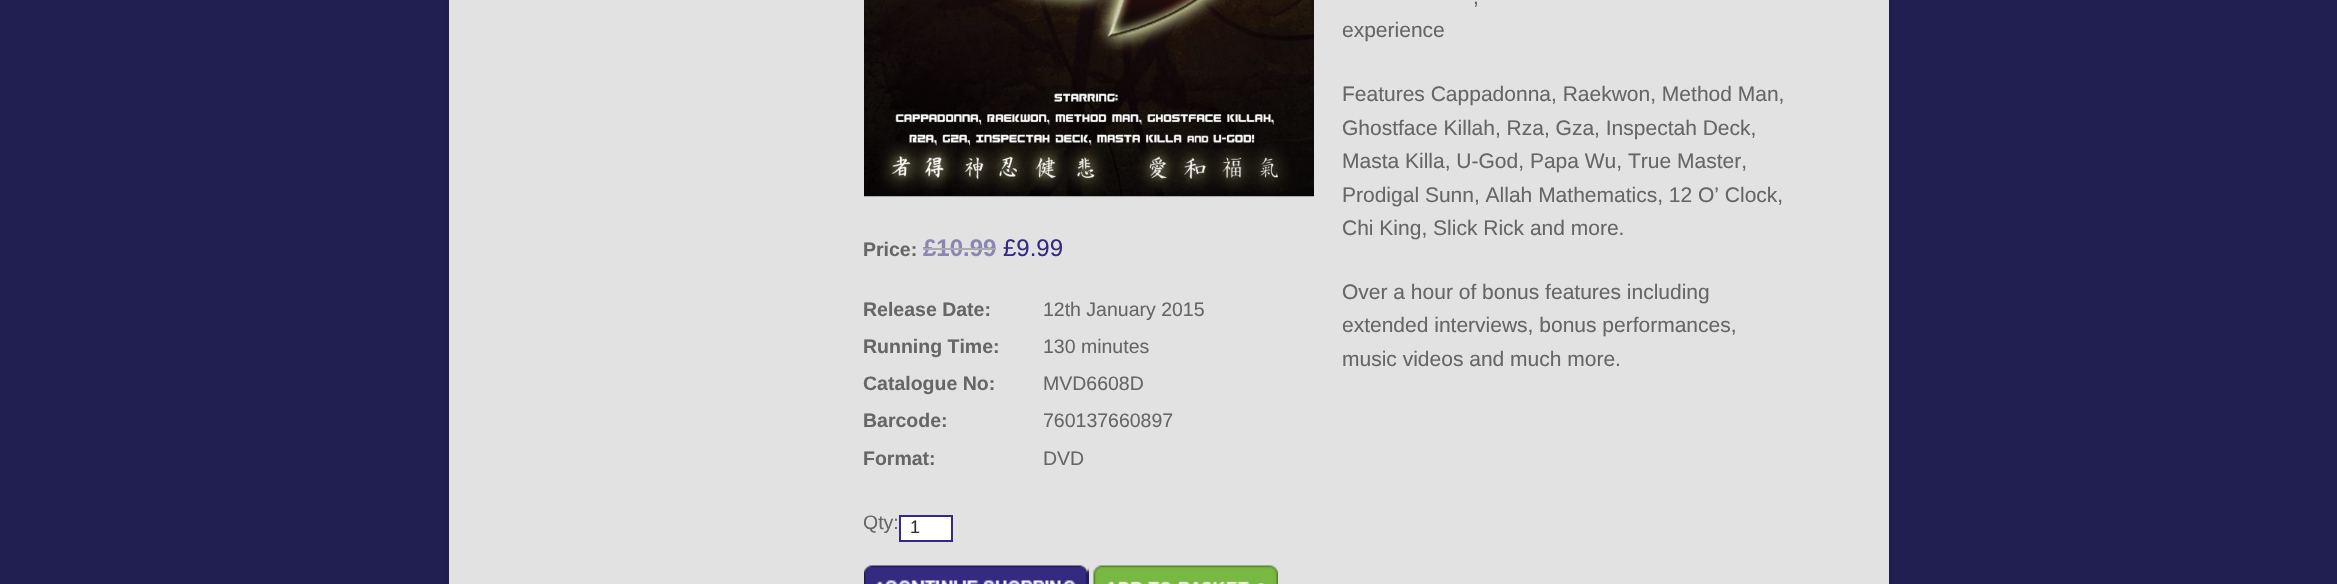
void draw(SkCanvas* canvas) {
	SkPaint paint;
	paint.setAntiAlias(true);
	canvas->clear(0xff211f51);
	paint.setColor(0x26000000);
	paint.setMaskFilter(SkMaskFilter::MakeBlur(kNormal_SkBlurStyle, 4.5));
	canvas->drawRoundRect(SkRect::MakeXYWH(449, -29, 1440, 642), 15, 15, paint);
	paint.setMaskFilter(nullptr);
	paint.setColor(0xffe2e2e2);
	canvas->drawRect(SkRect::MakeXYWH(449, 0, 1440, 584), paint);
	canvas->drawImageRect(SkImages::DeferredFromEncodedData(SkData::MakeFromFileName("img1.png")), SkRect::MakeXYWH(864, 0, 450, 197), SkSamplingOptions());
	SkFont f1(fontMgr->matchFamilyStyle("Liberation Sans", SkFontStyle::Bold()), 19.5);
	f1.setSubpixel(true);
	paint.setColor(0xff666666);
	canvas->drawString("Price:", 863, 256, f1, paint);
	SkFont f2(fontMgr->matchFamilyStyle("Liberation Sans", SkFontStyle::Bold()), 24);
	f2.setSubpixel(true);
	paint.setColor(0xff8b86b1);
	canvas->drawString("£10.99", 923, 256, f2, paint);
	paint.setColor(0xffababab);
	canvas->drawRect(SkRect::MakeXYWH(923, 248, 73, 2), paint);
	SkFont f3(fontMgr->matchFamilyStyle("Liberation Sans", SkFontStyle::Normal()), 24);
	f3.setSubpixel(true);
	paint.setColor(0xff342a80);
	canvas->drawString("£9.99", 1003, 256, f3, paint);
	paint.setColor(0xff666666);
	canvas->drawString("Release Date:", 863, 316, f1, paint);
	SkFont f4(fontMgr->matchFamilyStyle("Liberation Sans", SkFontStyle::Normal()), 19.5);
	f4.setSubpixel(true);
	canvas->drawString("12th January 2015", 1043, 316, f4, paint);
	canvas->drawString("Running Time:", 863, 353, f1, paint);
	canvas->drawString("130 minutes", 1043, 353, f4, paint);
	canvas->drawString("Catalogue No:", 863, 390, f1, paint);
	canvas->drawString("MVD6608D", 1043, 390, f4, paint);
	canvas->drawString("Barcode:", 863, 427, f1, paint);
	canvas->drawString("760137660897", 1043, 427, f4, paint);
	canvas->drawString("Format:", 863, 465, f1, paint);
	canvas->drawString("DVD", 1043, 465, f4, paint);
	canvas->drawString("Qty:", 863, 529, f4, paint);
	paint.setColor(0xffffffff);
	canvas->drawRect(SkRect::MakeXYWH(900, 516, 52, 25), paint);
	paint.setStroke(true);
	paint.setStrokeWidth(2);
	paint.setColor(0xff342a80);
	canvas->drawRect(SkRect::MakeXYWH(900, 516, 52, 25), paint);
	SkFont f5(fontMgr->matchFamilyStyle("Liberation Sans", SkFontStyle::Normal()), 18);
	f5.setSubpixel(true);
	paint.setStroke(false);
	paint.setColor(0xff2f2f2f);
	canvas->drawString("1", 910, 533, f5, paint);
	canvas->drawImageRect(SkImages::DeferredFromEncodedData(SkData::MakeFromFileName("img2.png")), SkRect::MakeXYWH(864, 565, 225, 19), SkSamplingOptions());
	canvas->drawImageRect(SkImages::DeferredFromEncodedData(SkData::MakeFromFileName("img3.png")), SkRect::MakeXYWH(1093, 565, 185, 19), SkSamplingOptions());
	SkFont f6(fontMgr->matchFamilyStyle("Liberation Sans", SkFontStyle::Normal()), 21);
	f6.setSubpixel(true);
	paint.setColor(0xff666666);
	canvas->drawString(",", 1473, 4, f6, paint);
	canvas->drawString("experience", 1342, 37, f6, paint);
	canvas->drawString("Features Cappadonna, Raekwon, Method Man,", 1342, 101, f6, paint);
	canvas->drawString("Ghostface Killah, Rza, Gza, Inspectah Deck,", 1342, 135, f6, paint);
	canvas->drawString("Masta Killa, U-God, Papa Wu, True Master,", 1342, 168, f6, paint);
	canvas->drawString("Prodigal Sunn, Allah Mathematics, 12 O’ Clock,", 1342, 202, f6, paint);
	canvas->drawString("Chi King, Slick Rick and more.", 1342, 235, f6, paint);
	canvas->drawString("Over a hour of bonus features including", 1342, 299, f6, paint);
	canvas->drawString("extended interviews, bonus performances,", 1342, 332, f6, paint);
	canvas->drawString("music videos and much more.", 1342, 366, f6, paint);
}
